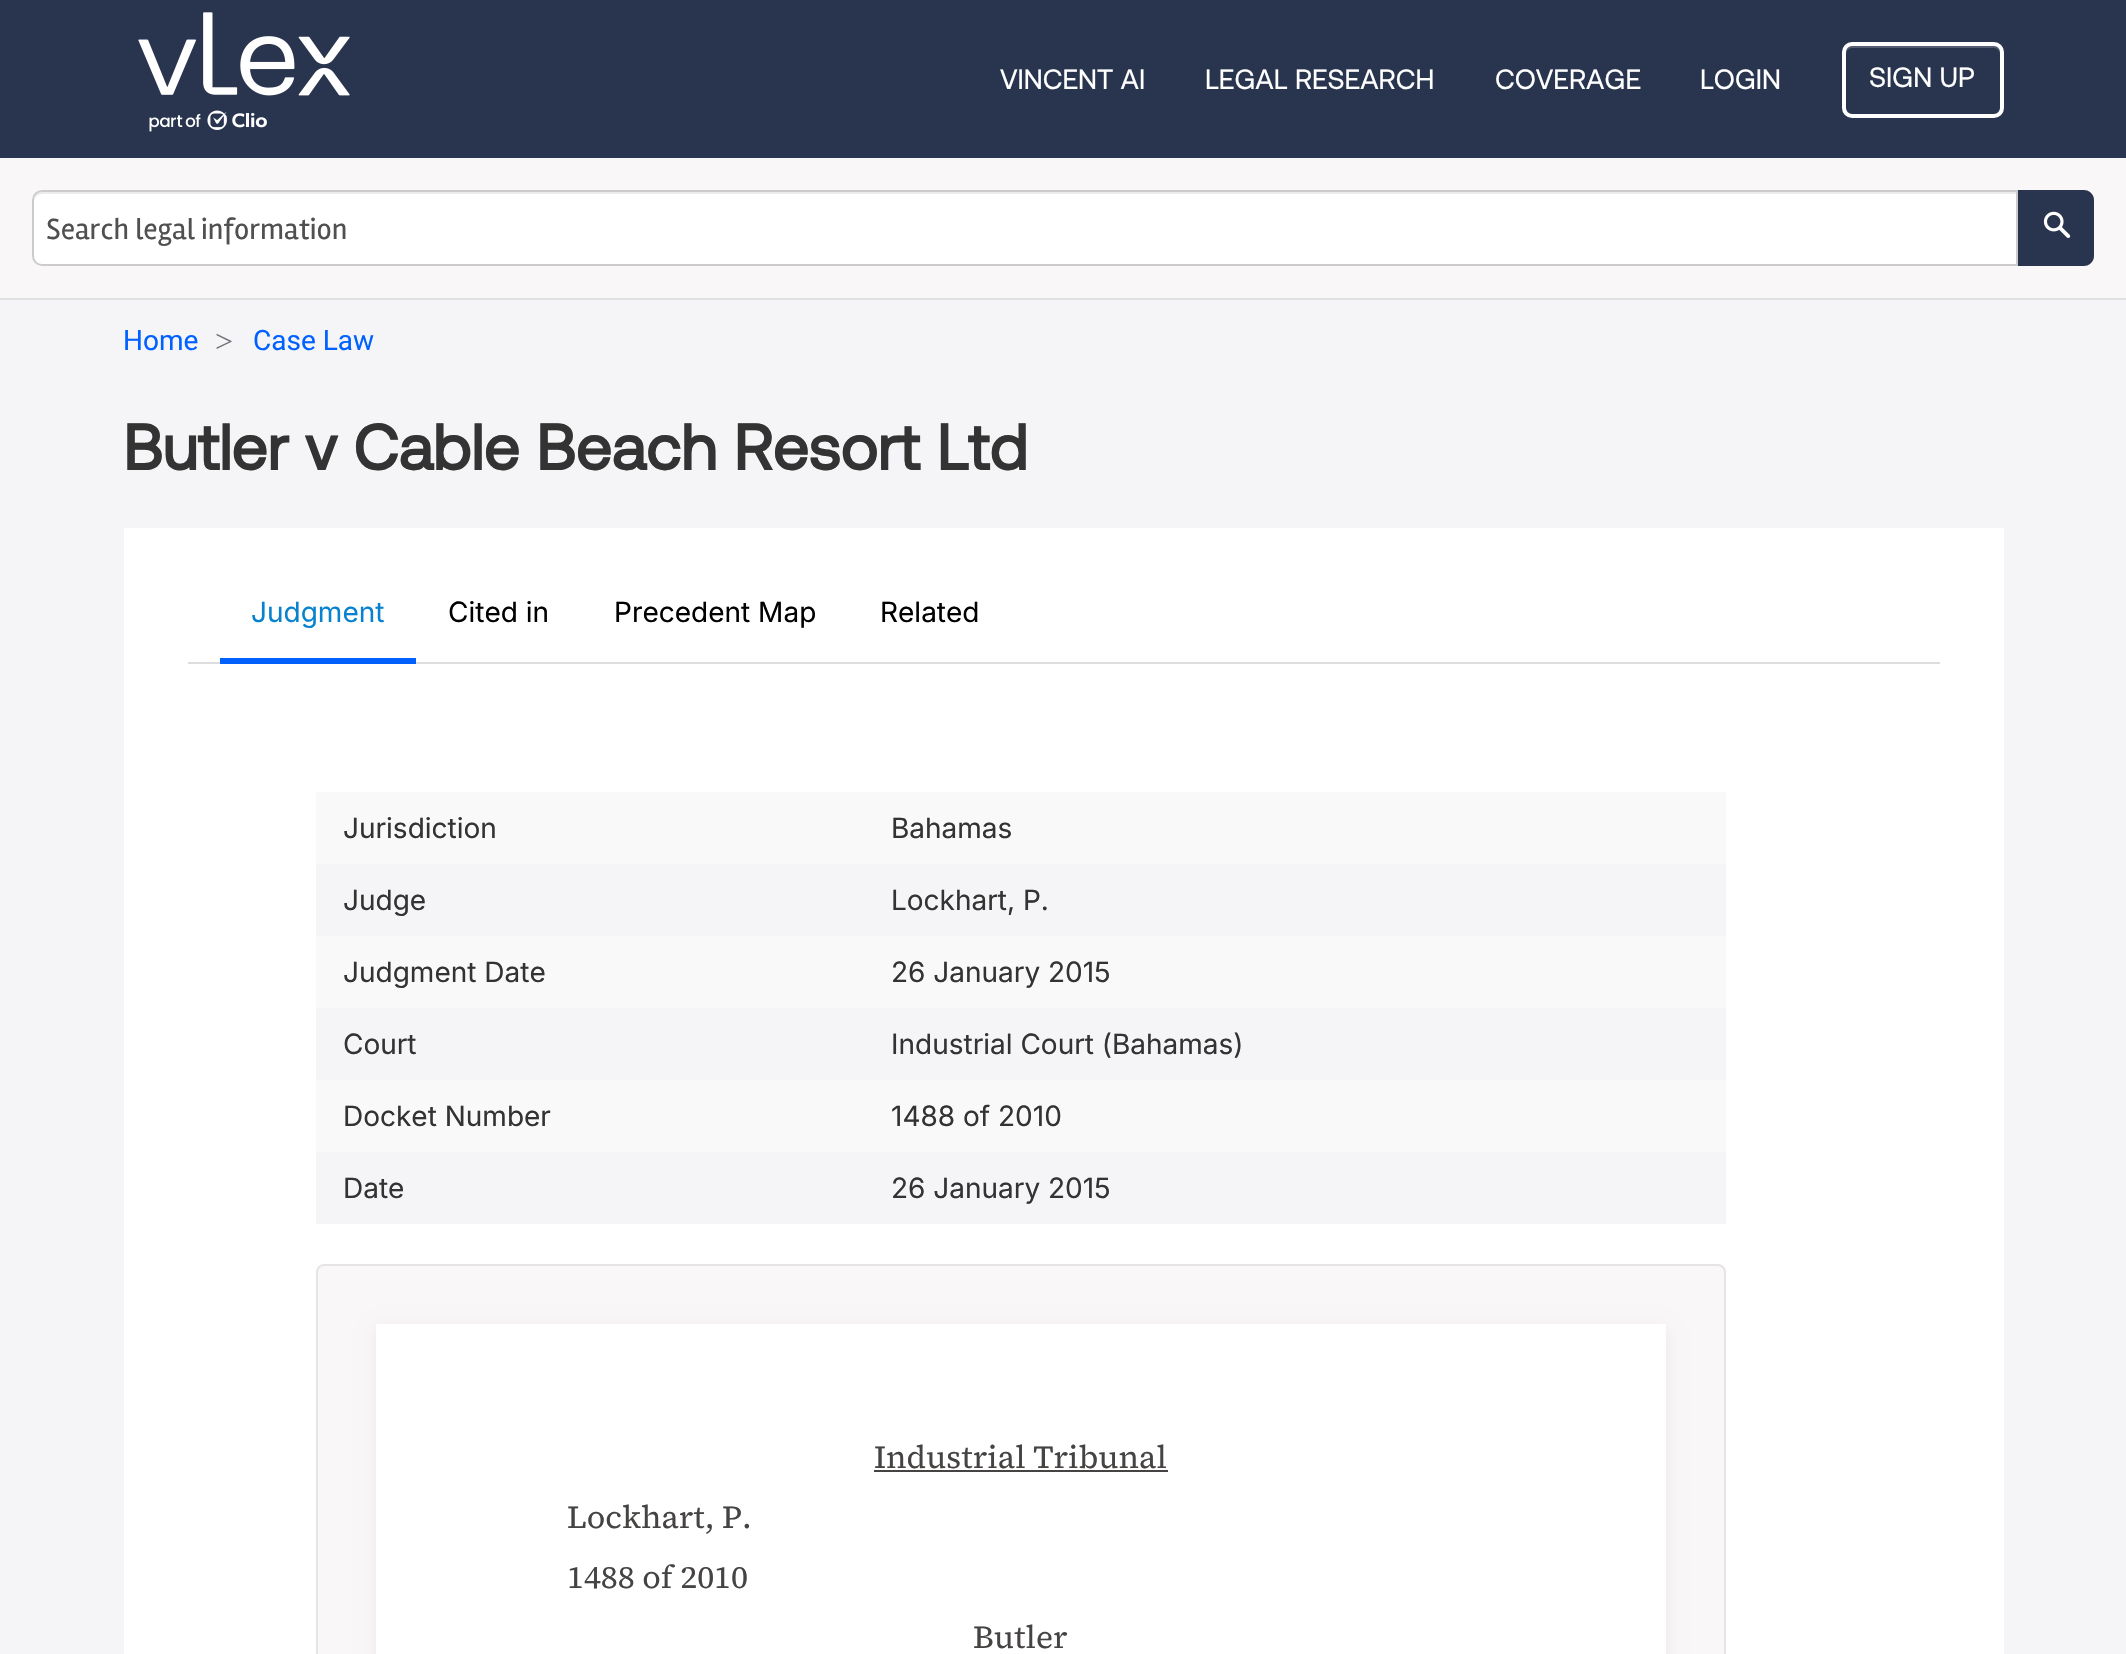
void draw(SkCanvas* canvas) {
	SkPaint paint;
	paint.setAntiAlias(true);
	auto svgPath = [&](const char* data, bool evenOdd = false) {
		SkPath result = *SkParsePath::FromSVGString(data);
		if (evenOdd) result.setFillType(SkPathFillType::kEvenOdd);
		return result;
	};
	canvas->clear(0xfff5f5f7);
	paint.setColor(0xff29354e);
	canvas->drawRect(SkRect::MakeXYWH(0, 0, 2126, 158), paint);
	canvas->drawImageRect(SkImages::DeferredFromEncodedData(SkData::MakeFromFileName("img1.png")), SkRect::MakeXYWH(138, 12, 212, 120), SkSamplingOptions());
	SkFont f1(fontMgr->matchFamilyStyle("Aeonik", SkFontStyle::Normal()), 28);
	f1.setSubpixel(true);
	paint.setColor(0xffffffff);
	canvas->drawString("VINCENT AI", 1000, 89, f1, paint);
	canvas->drawString("LEGAL RESEARCH", 1205, 89, f1, paint);
	canvas->drawString("COVERAGE", 1495, 89, f1, paint);
	canvas->drawString("LOGIN", 1700, 89, f1, paint);
	paint.setColor(0xff545d71);
	canvas->drawPath(svgPath("M1852 48H1994C1997 48 2000 51 2000 54V52C2000 49 1997 46 1994 46H1852C1849 46 1846 49 1846 52V54C1846 51 1849 48 1852 48Z"), paint);
	paint.setStroke(true);
	paint.setStrokeWidth(4);
	paint.setColor(0xffffffff);
	canvas->drawRoundRect(SkRect::MakeXYWH(1844, 44, 158, 72), 8, 8, paint);
	paint.setStroke(false);
	canvas->drawString("SIGN UP", 1869, 87, f1, paint);
	paint.setColor(0xfff9f7f7);
	canvas->drawRect(SkRect::MakeXYWH(0, 158, 2126, 140), paint);
	paint.setColor(0xffe1e1e1);
	canvas->drawRect(SkRect::MakeXYWH(0, 298, 2126, 2), paint);
	paint.setColor(0xffffffff);
	canvas->drawPath(svgPath("M42 190H2018V266H42C36.5 266 32 261.5 32 256V200C32 194.5 36.5 190 42 190Z"), paint);
	paint.setColor(0xffececec);
	canvas->drawPath(svgPath("M42 194H2016V192H42C36 192 34 197 34 202C34 198 38 194 42 194Z"), paint);
	paint.setStroke(true);
	paint.setStrokeWidth(2);
	paint.setColor(0xffcccccc);
	canvas->drawPath(svgPath("M42 191H2017V265H42C37 265 33 261 33 256V200C33 195 37 191 42 191Z"), paint);
	SkFont f2(fontMgr->matchFamilyStyle("Rambla", SkFontStyle::Normal()), 30);
	f2.setSubpixel(true);
	paint.setStroke(false);
	paint.setColor(0xff505050);
	canvas->drawString("Search legal information", 46, 239, f2, paint);
	paint.setColor(0xff29354e);
	canvas->drawPath(svgPath("M2018 190H2084C2089.5 190 2094 194.5 2094 200V256C2094 261.5 2089.5 266 2084 266H2018Z"), paint);
	canvas->drawImageRect(SkImages::DeferredFromEncodedData(SkData::MakeFromFileName("img2.png")), SkRect::MakeXYWH(2043, 211, 28, 27), SkSamplingOptions());
	SkFont f3(fontMgr->matchFamilyStyle("Roboto", SkFontStyle::Normal()), 28);
	f3.setSubpixel(true);
	paint.setColor(0xff0161ff);
	canvas->drawString("Home", 123, 350, f3, paint);
	SkFont f4(fontMgr->matchFamilyStyle("Liberation Serif", SkFontStyle::Normal()), 32);
	f4.setSubpixel(true);
	paint.setColor(0xff71717a);
	canvas->drawString(">", 215, 352, f4, paint);
	paint.setColor(0xff0161ff);
	canvas->drawString("Case Law", 253, 350, f3, paint);
	SkFont f5(fontMgr->matchFamilyStyle("Aeonik", SkFontStyle::Bold()), 64);
	f5.setSubpixel(true);
	paint.setColor(0xff333333);
	canvas->drawString("Butler v Cable Beach Resort Ltd", 123, 470, f5, paint);
	paint.setColor(0xffffffff);
	canvas->drawRect(SkRect::MakeXYWH(124, 528, 1880, 1126), paint);
	paint.setColor(0xffdddddd);
	canvas->drawRect(SkRect::MakeXYWH(188, 662, 1752, 2), paint);
	SkFont f6(fontMgr->matchFamilyStyle("Inter", SkFontStyle::Normal()), 28);
	f6.setSubpixel(true);
	paint.setColor(0xff0882cf);
	canvas->drawString("Judgment", 251, 622, f6, paint);
	paint.setColor(0xff0161ff);
	canvas->drawRect(SkRect::MakeXYWH(220, 658, 196, 6), paint);
	paint.setColor(0xff000000);
	canvas->drawString("Cited in", 448, 622, f6, paint);
	canvas->drawString("Precedent Map", 614, 622, f6, paint);
	canvas->drawString("Related", 880, 622, f6, paint);
	paint.setColor(0xfff9f9f9);
	canvas->drawRect(SkRect::MakeXYWH(316, 792, 1410, 72), paint);
	paint.setColor(0xff333333);
	canvas->drawString("Jurisdiction", 343, 838, f6, paint);
	canvas->drawString("Bahamas", 891, 838, f6, paint);
	paint.setColor(0xfff5f5f7);
	canvas->drawRect(SkRect::MakeXYWH(316, 864, 1410, 72), paint);
	paint.setColor(0xff333333);
	canvas->drawString("Judge", 343, 910, f6, paint);
	canvas->drawString("Lockhart, P.", 891, 910, f6, paint);
	paint.setColor(0xfff9f9f9);
	canvas->drawRect(SkRect::MakeXYWH(316, 936, 1410, 72), paint);
	paint.setColor(0xff333333);
	canvas->drawString("Judgment Date", 343, 982, f6, paint);
	canvas->drawString("26 January 2015", 891, 982, f6, paint);
	paint.setColor(0xfff5f5f7);
	canvas->drawRect(SkRect::MakeXYWH(316, 1008, 1410, 72), paint);
	paint.setColor(0xff333333);
	canvas->drawString("Court", 343, 1054, f6, paint);
	canvas->drawString("Industrial Court (Bahamas)", 891, 1054, f6, paint);
	paint.setColor(0xfff9f9f9);
	canvas->drawRect(SkRect::MakeXYWH(316, 1080, 1410, 72), paint);
	paint.setColor(0xff333333);
	canvas->drawString("Docket Number", 343, 1126, f6, paint);
	canvas->drawString("1488 of 2010", 891, 1126, f6, paint);
	paint.setColor(0xfff5f5f7);
	canvas->drawRect(SkRect::MakeXYWH(316, 1152, 1410, 72), paint);
	paint.setColor(0xff333333);
	canvas->drawString("Date", 343, 1198, f6, paint);
	canvas->drawString("26 January 2015", 891, 1198, f6, paint);
	paint.setColor(0xfff9f7f7);
	canvas->drawPath(svgPath("M324 1264H1718C1722.5 1264 1726 1267.5 1726 1272V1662H316V1272C316 1267.5 319.5 1264 324 1264Z"), paint);
	paint.setColor(0xffe7e4e4);
	canvas->drawPath(svgPath("M324 1264H1718C1722 1264 1726 1268 1726 1272V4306H316V1272C316 1268 320 1264 324 1264ZM324 1266H1718C1721 1266 1724 1269 1724 1272V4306H318V1272C318 1269 321 1266 324 1266Z", true), paint);
	paint.setColor(0x0f000000);
	paint.setMaskFilter(SkMaskFilter::MakeBlur(kNormal_SkBlurStyle, 8));
	canvas->drawRect(SkRect::MakeXYWH(376, 1328, 1290, 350), paint);
	paint.setMaskFilter(nullptr);
	paint.setColor(0xffffffff);
	canvas->drawRect(SkRect::MakeXYWH(376, 1324, 1290, 330), paint);
	SkFont f7(fontMgr->matchFamilyStyle("Source Serif 4", SkFontStyle::Normal()), 32);
	f7.setSubpixel(true);
	paint.setColor(0xff464343);
	canvas->drawString("Industrial Tribunal", 874, 1468, f7, paint);
	canvas->drawRect(SkRect::MakeXYWH(874, 1470, 294, 2), paint);
	canvas->drawString("Lockhart, P.", 567, 1528, f7, paint);
	canvas->drawString("1488 of 2010", 567, 1588, f7, paint);
	canvas->drawString("Butler", 973, 1648, f7, paint);
}
